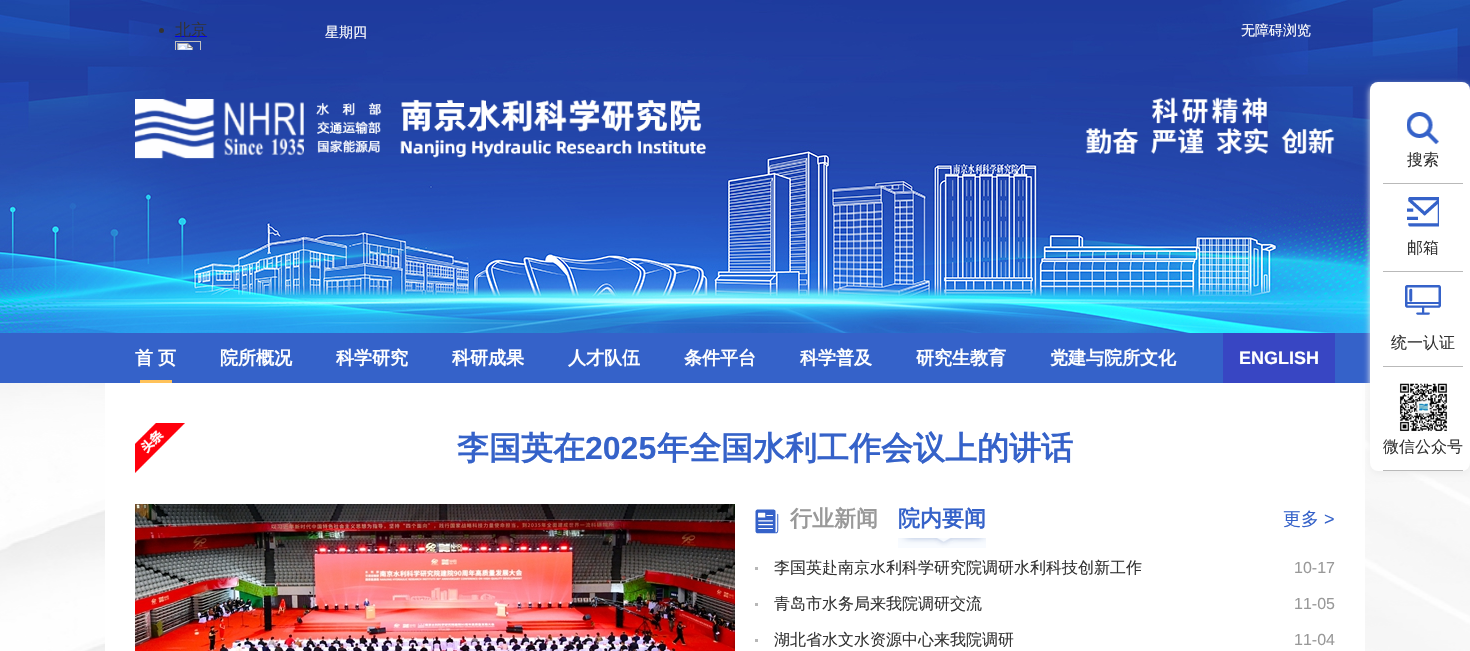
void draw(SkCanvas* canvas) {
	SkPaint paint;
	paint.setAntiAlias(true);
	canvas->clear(0xffffffff);
	canvas->drawImageRect(SkImages::DeferredFromEncodedData(SkData::MakeFromFileName("img1.png")), SkRect::MakeXYWH(0, 0, 1470, 333), SkSamplingOptions());
	canvas->drawImageRect(SkImages::DeferredFromEncodedData(SkData::MakeFromFileName("img2.png")), SkRect::MakeXYWH(159, 21, 48, 29), SkSamplingOptions());
	SkFont f1(fontMgr->matchFamilyStyle("WenQuanYi Zen Hei", SkFontStyle(500, SkFontStyle::kNormal_Width, SkFontStyle::kUpright_Slant)), 14);
	f1.setSubpixel(true);
	paint.setColor(0xffffffff);
	canvas->drawString("星期四", 325, 37, f1, paint);
	canvas->drawString("无障碍浏览", 1241, 35, f1, paint);
	canvas->drawImageRect(SkImages::DeferredFromEncodedData(SkData::MakeFromFileName("img3.png")), SkRect::MakeXYWH(135, 99, 169, 60), SkSamplingOptions());
	canvas->drawImageRect(SkImages::DeferredFromEncodedData(SkData::MakeFromFileName("img4.png")), SkRect::MakeXYWH(316, 99, 390, 59), SkSamplingOptions());
	canvas->drawImageRect(SkImages::DeferredFromEncodedData(SkData::MakeFromFileName("img5.png")), SkRect::MakeXYWH(1085, 97, 250, 57), SkSamplingOptions());
	paint.setColor(0xff3562c9);
	canvas->drawRect(SkRect::MakeXYWH(0, 333, 1370, 50), paint);
	paint.setColor(0xffffc25a);
	canvas->drawRect(SkRect::MakeXYWH(140, 380, 32, 3), paint);
	SkFont f2(fontMgr->matchFamilyStyle("WenQuanYi Zen Hei", SkFontStyle::Bold()), 18);
	f2.setSubpixel(true);
	paint.setColor(0xffffffff);
	canvas->drawString("首", 135, 364, f2, paint);
	canvas->drawString("页", 158, 364, f2, paint);
	canvas->drawString("院所概况", 220, 364, f2, paint);
	canvas->drawString("科学研究", 336, 364, f2, paint);
	canvas->drawString("科研成果", 452, 364, f2, paint);
	canvas->drawString("人才队伍", 568, 364, f2, paint);
	canvas->drawString("条件平台", 684, 364, f2, paint);
	canvas->drawString("科学普及", 800, 364, f2, paint);
	canvas->drawString("研究生教育", 916, 364, f2, paint);
	canvas->drawString("党建与院所文化", 1050, 364, f2, paint);
	paint.setColor(0xff3846c3);
	canvas->drawRect(SkRect::MakeXYWH(1223, 333, 112, 50), paint);
	SkFont f3(fontMgr->matchFamilyStyle("Liberation Sans", SkFontStyle::Bold()), 18);
	f3.setSubpixel(true);
	paint.setColor(0xffffffff);
	canvas->drawString("ENGLISH", 1239, 364, f3, paint);
	canvas->drawImageRect(SkImages::DeferredFromEncodedData(SkData::MakeFromFileName("img6.png")), SkRect::MakeXYWH(0, 383, 1470, 268), SkSamplingOptions());
	canvas->drawRect(SkRect::MakeXYWH(105, 383, 1260, 268), paint);
	canvas->drawImageRect(SkImages::DeferredFromEncodedData(SkData::MakeFromFileName("img7.png")), SkRect::MakeXYWH(135, 423, 50, 50), SkSamplingOptions());
	SkFont f4(fontMgr->matchFamilyStyle("WenQuanYi Zen Hei", SkFontStyle::Bold()), 32);
	f4.setSubpixel(true);
	paint.setColor(0xff3562c9);
	canvas->drawString("李国英在", 457, 459, f4, paint);
	SkFont f5(fontMgr->matchFamilyStyle("Liberation Sans", SkFontStyle::Bold()), 32);
	f5.setSubpixel(true);
	canvas->drawString("2025", 585, 459, f5, paint);
	canvas->drawString("年全国水利工作会议上的讲话", 657, 459, f4, paint);
	canvas->drawImageRect(SkImages::DeferredFromEncodedData(SkData::MakeFromFileName("img8.png")), SkRect::MakeXYWH(135, 504, 600, 147), SkSamplingOptions());
	canvas->drawImageRect(SkImages::DeferredFromEncodedData(SkData::MakeFromFileName("img9.png")), SkRect::MakeXYWH(755, 509, 24, 25), SkSamplingOptions());
	SkFont f6(fontMgr->matchFamilyStyle("WenQuanYi Zen Hei", SkFontStyle::Bold()), 22);
	f6.setSubpixel(true);
	paint.setColor(0xff999999);
	canvas->drawString("行业新闻", 790, 526, f6, paint);
	canvas->drawImageRect(SkImages::DeferredFromEncodedData(SkData::MakeFromFileName("img10.png")), SkRect::MakeXYWH(898, 538, 88, 10), SkSamplingOptions());
	paint.setColor(0xff3562c9);
	canvas->drawString("院内要闻", 898, 526, f6, paint);
	SkFont f7(fontMgr->matchFamilyStyle("WenQuanYi Zen Hei", SkFontStyle(500, SkFontStyle::kNormal_Width, SkFontStyle::kUpright_Slant)), 18);
	f7.setSubpixel(true);
	canvas->drawString("更多", 1283, 525, f7, paint);
	SkFont f8(fontMgr->matchFamilyStyle("Liberation Sans", SkFontStyle::Normal()), 18);
	f8.setSubpixel(true);
	canvas->drawString(">", 1324, 525, f8, paint);
	paint.setColor(0xffb7b7b7);
	canvas->drawRect(SkRect::MakeXYWH(755, 567, 3, 3), paint);
	SkFont f9(fontMgr->matchFamilyStyle("WenQuanYi Zen Hei", SkFontStyle(500, SkFontStyle::kNormal_Width, SkFontStyle::kUpright_Slant)), 16);
	f9.setSubpixel(true);
	paint.setColor(0xff333333);
	canvas->drawString("李国英赴南京水利科学研究院调研水利科技创新工作", 774, 573, f9, paint);
	SkFont f10(fontMgr->matchFamilyStyle("Liberation Sans", SkFontStyle::Normal()), 16);
	f10.setSubpixel(true);
	paint.setColor(0xff999999);
	canvas->drawString("10-17", 1294, 573, f10, paint);
	paint.setColor(0xffb7b7b7);
	canvas->drawRect(SkRect::MakeXYWH(755, 603, 3, 3), paint);
	paint.setColor(0xff333333);
	canvas->drawString("青岛市水务局来我院调研交流", 774, 609, f9, paint);
	paint.setColor(0xff999999);
	canvas->drawString("11-05", 1294, 609, f10, paint);
	paint.setColor(0xffb7b7b7);
	canvas->drawRect(SkRect::MakeXYWH(755, 639, 3, 3), paint);
	paint.setColor(0xff333333);
	canvas->drawString("湖北省水文水资源中心来我院调研", 774, 645, f9, paint);
	paint.setColor(0xff999999);
	canvas->drawString("11-04", 1294, 645, f10, paint);
	paint.setColor(0xffeeeeee);
	paint.setMaskFilter(SkMaskFilter::MakeBlur(kNormal_SkBlurStyle, 3));
	canvas->drawRoundRect(SkRect::MakeXYWH(1370, 85, 100, 389), 8, 8, paint);
	paint.setMaskFilter(nullptr);
	paint.setColor(0xffffffff);
	canvas->drawRoundRect(SkRect::MakeXYWH(1370, 82, 100, 389), 8, 8, paint);
	paint.setColor(0xffb9b9b9);
	canvas->drawRect(SkRect::MakeXYWH(1383, 183, 80, 1), paint);
	canvas->drawImageRect(SkImages::DeferredFromEncodedData(SkData::MakeFromFileName("img11.png")), SkRect::MakeXYWH(1407, 112, 32, 33), SkSamplingOptions());
	paint.setColor(0xff333333);
	canvas->drawString("搜索", 1407, 165, f9, paint);
	paint.setColor(0xffb9b9b9);
	canvas->drawRect(SkRect::MakeXYWH(1383, 271, 80, 1), paint);
	canvas->drawImageRect(SkImages::DeferredFromEncodedData(SkData::MakeFromFileName("img12.png")), SkRect::MakeXYWH(1407, 197, 32, 30), SkSamplingOptions());
	paint.setColor(0xff333333);
	canvas->drawString("邮箱", 1407, 253, f9, paint);
	paint.setColor(0xffb9b9b9);
	canvas->drawRect(SkRect::MakeXYWH(1383, 366, 80, 1), paint);
	canvas->drawImageRect(SkImages::DeferredFromEncodedData(SkData::MakeFromFileName("img13.png")), SkRect::MakeXYWH(1405, 285, 36, 30), SkSamplingOptions());
	paint.setColor(0xff333333);
	canvas->drawString("统一认证", 1391, 348, f9, paint);
	paint.setColor(0xffb9b9b9);
	canvas->drawRect(SkRect::MakeXYWH(1383, 470, 80, 1), paint);
	canvas->drawImageRect(SkImages::DeferredFromEncodedData(SkData::MakeFromFileName("img14.png")), SkRect::MakeXYWH(1399, 383, 51, 51), SkSamplingOptions());
	paint.setColor(0xff333333);
	canvas->drawString("微信公众号", 1383, 452, f9, paint);
}
